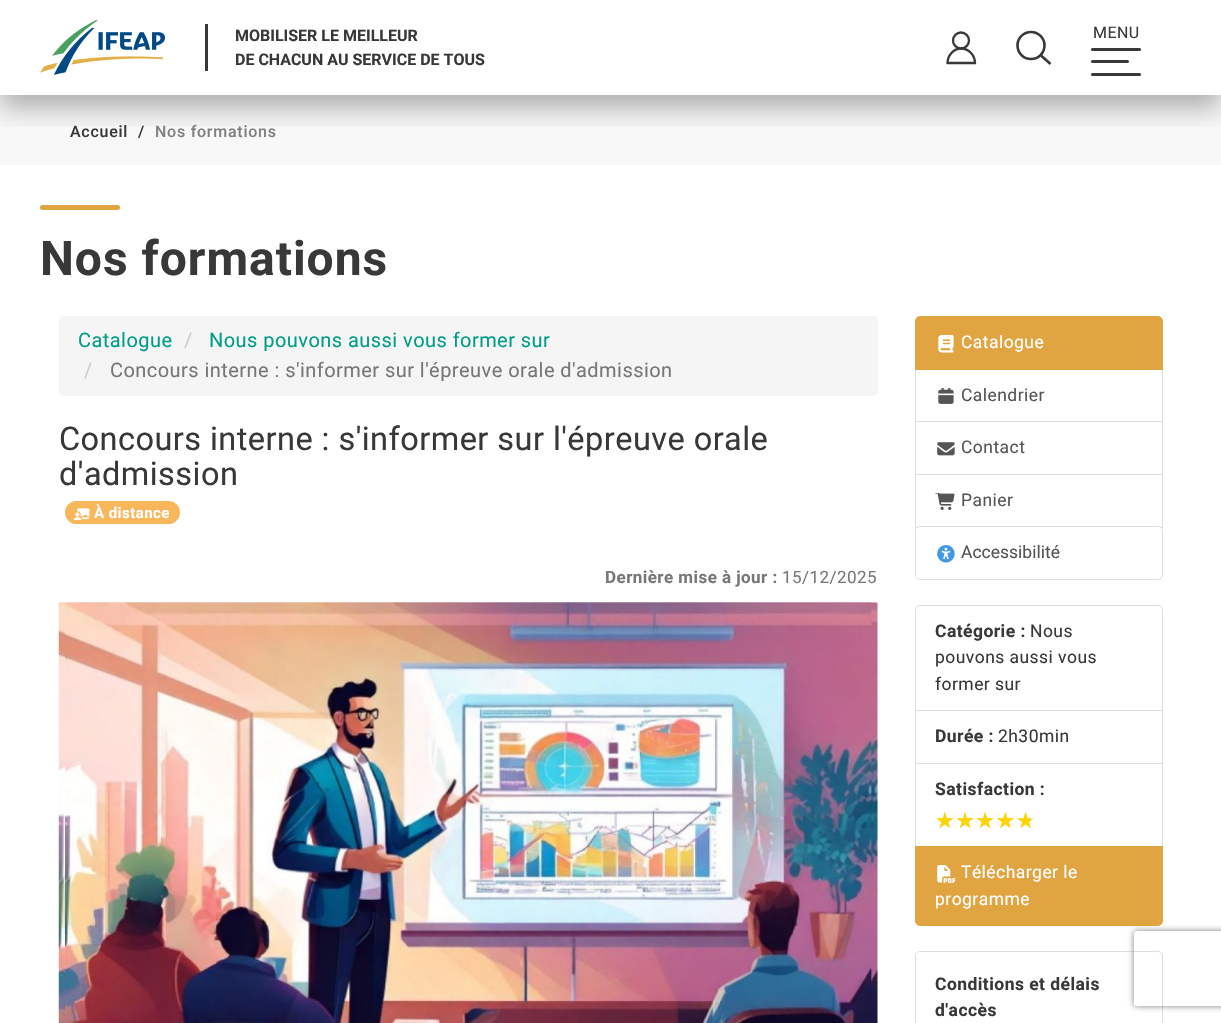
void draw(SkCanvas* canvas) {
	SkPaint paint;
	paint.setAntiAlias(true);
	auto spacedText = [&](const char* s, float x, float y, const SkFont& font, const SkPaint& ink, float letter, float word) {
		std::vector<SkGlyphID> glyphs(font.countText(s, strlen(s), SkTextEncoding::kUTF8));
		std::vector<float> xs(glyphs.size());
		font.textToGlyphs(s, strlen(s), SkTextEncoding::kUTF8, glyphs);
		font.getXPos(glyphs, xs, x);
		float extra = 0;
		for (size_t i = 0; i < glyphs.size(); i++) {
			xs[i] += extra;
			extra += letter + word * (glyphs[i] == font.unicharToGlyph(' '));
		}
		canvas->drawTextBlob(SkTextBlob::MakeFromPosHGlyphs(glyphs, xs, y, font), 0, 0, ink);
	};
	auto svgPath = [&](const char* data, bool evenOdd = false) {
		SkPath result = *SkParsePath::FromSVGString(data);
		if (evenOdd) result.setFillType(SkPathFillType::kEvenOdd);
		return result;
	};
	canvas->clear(0xffffffff);
	paint.setColor(0xfff8f8f8);
	canvas->drawRect(SkRect::MakeXYWH(0, 95, 1221, 70), paint);
	canvas->save();
	canvas->clipRect(SkRect::MakeXYWH(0, 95, 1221, 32));
	paint.setColor(0x4d000000);
	paint.setMaskFilter(SkMaskFilter::MakeBlur(kNormal_SkBlurStyle, 12.5));
	canvas->drawRect(SkRect::MakeXYWH(0, 13, 1221, 95), paint);
	paint.setMaskFilter(nullptr);
	canvas->restore();
	canvas->drawImageRect(SkImages::DeferredFromEncodedData(SkData::MakeFromFileName("img1.png")), SkRect::MakeXYWH(40, 20, 125, 55), SkSamplingOptions());
	paint.setColor(0xff383838);
	canvas->drawRect(SkRect::MakeXYWH(205, 24, 3, 47), paint);
	SkFont f1(fontMgr->matchFamilyStyle("Roboto", SkFontStyle::Bold()), 16);
	f1.setSubpixel(true);
	canvas->drawString("MOBILISER LE MEILLEUR", 235, 41, f1, paint);
	canvas->drawString("DE CHACUN AU SERVICE DE TOUS", 235, 65, f1, paint);
	paint.setStroke(true);
	paint.setStrokeWidth(2.3);
	canvas->drawCircle(961, 40.5, 8, paint);
	canvas->drawPath(svgPath("M961 48.5C969 48.5 975 55.5 975 63H947.5C947.5 55.5 953.5 48.5 961 48.5Z"), paint);
	paint.setStrokeWidth(2.6);
	canvas->drawCircle(1031, 45.5, 13.5, paint);
	canvas->drawPath(svgPath("M1040.5 55L1050.5 64"), paint);
	SkFont f2(fontMgr->matchFamilyStyle("Roboto", SkFontStyle::Normal()), 16);
	f2.setSubpixel(true);
	paint.setStroke(false);
	spacedText("MENU", 1093, 38, f2, paint, 0.45, 0);
	canvas->drawRoundRect(SkRect::MakeXYWH(1091, 48, 50, 3), 1.5, 1.5, paint);
	canvas->drawRoundRect(SkRect::MakeXYWH(1091, 60, 38, 3), 1.5, 1.5, paint);
	canvas->drawRoundRect(SkRect::MakeXYWH(1091, 73, 50, 3), 1.5, 1.5, paint);
	SkFont f3(fontMgr->matchFamilyStyle("Roboto", SkFontStyle(500, SkFontStyle::kNormal_Width, SkFontStyle::kUpright_Slant)), 16);
	f3.setSubpixel(true);
	spacedText("Accueil", 70, 137, f3, paint, 0.75, 0);
	spacedText("/", 138, 137, f3, paint, 0.75, 0);
	paint.setColor(0xff808080);
	spacedText("Nos formations", 155, 137, f3, paint, 0.75, 0);
	paint.setColor(0xffe0a440);
	canvas->drawRoundRect(SkRect::MakeXYWH(40, 205, 80, 5), 2.5, 2.5, paint);
	SkFont f4(fontMgr->matchFamilyStyle("Roboto", SkFontStyle::Bold()), 48);
	f4.setSubpixel(true);
	paint.setColor(0xff383838);
	spacedText("Nos formations", 40, 275, f4, paint, 1, 0);
	paint.setColor(0xfff5f5f5);
	canvas->drawRoundRect(SkRect::MakeXYWH(59, 316, 819, 80), 5, 5, paint);
	SkFont f5(fontMgr->matchFamilyStyle("Roboto", SkFontStyle::Normal()), 20);
	f5.setSubpixel(true);
	paint.setColor(0xff009d88);
	spacedText("Catalogue", 78, 347, f5, paint, 0.45, 0);
	paint.setColor(0xffcccccc);
	spacedText("/", 184, 347, f5, paint, 0.45, 0);
	paint.setColor(0xff009d88);
	spacedText("Nous pouvons aussi vous former sur", 209, 347, f5, paint, 0.45, 0);
	paint.setColor(0xffcccccc);
	spacedText("/", 84, 377, f5, paint, 0.45, 0);
	paint.setColor(0xff777777);
	spacedText("Concours interne : s'informer sur l'épreuve orale d'admission", 110, 377, f5, paint, 0.45, 0);
	SkFont f6(fontMgr->matchFamilyStyle("Roboto", SkFontStyle::Normal()), 32.5);
	f6.setSubpixel(true);
	paint.setColor(0xff383838);
	spacedText("Concours interne : s'informer sur l'épreuve orale", 59, 450, f6, paint, 0.45, 0);
	spacedText("d'admission", 59, 485, f6, paint, 0.45, 0);
	paint.setColor(0xfff9b75c);
	canvas->drawRoundRect(SkRect::MakeXYWH(65, 501, 115, 23), 11.5, 11.5, paint);
	canvas->drawImageRect(SkImages::DeferredFromEncodedData(SkData::MakeFromFileName("img2.png")), SkRect::MakeXYWH(74, 508, 16, 12), SkSamplingOptions());
	SkFont f7(fontMgr->matchFamilyStyle("Roboto", SkFontStyle::Bold()), 15);
	f7.setSubpixel(true);
	paint.setColor(0xffffffff);
	spacedText("À distance", 94, 518, f7, paint, 0.45, 0);
	SkFont f8(fontMgr->matchFamilyStyle("Roboto", SkFontStyle::Bold()), 17);
	f8.setSubpixel(true);
	paint.setColor(0xff777777);
	spacedText("Dernière mise à jour :", 605, 583, f8, paint, 0.45, 0);
	SkFont f9(fontMgr->matchFamilyStyle("Roboto", SkFontStyle::Normal()), 17);
	f9.setSubpixel(true);
	spacedText("15/12/2025", 782, 583, f9, paint, 0.45, 0);
	canvas->drawImageRect(SkImages::DeferredFromEncodedData(SkData::MakeFromFileName("img3.png")), SkRect::MakeXYWH(58, 602, 820, 421), SkSamplingOptions());
	canvas->drawImageRect(SkImages::DeferredFromEncodedData(SkData::MakeFromFileName("img4.png")), SkRect::MakeXYWH(65, 602, 807, 421), SkSamplingOptions());
	paint.setStroke(true);
	paint.setStrokeWidth(1);
	paint.setColor(0xffdddddd);
	canvas->drawRect(SkRect::MakeXYWH(915.5, 369.5, 247, 53), paint);
	paint.setStroke(false);
	paint.setColor(0xffe0a440);
	canvas->drawPath(svgPath("M920 316.5H1158C1160.5 316.5 1162.5 318.5 1162.5 321V369.5H915.5V321C915.5 318.5 917.5 316.5 920 316.5Z"), paint);
	paint.setStroke(true);
	canvas->drawPath(svgPath("M920 316.5H1158C1160.5 316.5 1162.5 318.5 1162.5 321V369.5H915.5V321C915.5 318.5 917.5 316.5 920 316.5Z"), paint);
	canvas->drawImageRect(SkImages::DeferredFromEncodedData(SkData::MakeFromFileName("img5.png")), SkRect::MakeXYWH(938, 335, 16, 18), SkSamplingOptions());
	SkFont f10(fontMgr->matchFamilyStyle("Roboto", SkFontStyle::Normal()), 17.5);
	f10.setSubpixel(true);
	paint.setStroke(false);
	paint.setColor(0xffffffff);
	spacedText("Catalogue", 961, 348, f10, paint, 0.45, 0);
	canvas->drawImageRect(SkImages::DeferredFromEncodedData(SkData::MakeFromFileName("img6.png")), SkRect::MakeXYWH(938, 388, 16, 16), SkSamplingOptions());
	paint.setColor(0xff555555);
	spacedText("Calendrier", 961, 401, f10, paint, 0.45, 0);
	paint.setColor(0xffffffff);
	canvas->drawRect(SkRect::MakeXYWH(916, 422, 246, 1), paint);
	paint.setStroke(true);
	paint.setColor(0xffdddddd);
	canvas->drawRect(SkRect::MakeXYWH(915.5, 421.5, 247, 53), paint);
	canvas->drawImageRect(SkImages::DeferredFromEncodedData(SkData::MakeFromFileName("img7.png")), SkRect::MakeXYWH(937, 442, 18, 14), SkSamplingOptions());
	paint.setStroke(false);
	paint.setColor(0xff555555);
	spacedText("Contact", 961, 453, f10, paint, 0.45, 0);
	paint.setStroke(true);
	paint.setColor(0xffdddddd);
	canvas->drawRect(SkRect::MakeXYWH(915.5, 474.5, 247, 53), paint);
	canvas->drawImageRect(SkImages::DeferredFromEncodedData(SkData::MakeFromFileName("img8.png")), SkRect::MakeXYWH(935, 493, 20, 17), SkSamplingOptions());
	paint.setStroke(false);
	paint.setColor(0xff555555);
	spacedText("Panier", 961, 506, f10, paint, 0.45, 0);
	paint.setColor(0xffffffff);
	canvas->drawRoundRect(SkRect::MakeXYWH(915.5, 526.5, 247, 53), 4.5, 4.5, paint);
	paint.setStroke(true);
	paint.setColor(0xffdddddd);
	canvas->drawRoundRect(SkRect::MakeXYWH(915.5, 526.5, 247, 53), 4.5, 4.5, paint);
	canvas->drawImageRect(SkImages::DeferredFromEncodedData(SkData::MakeFromFileName("img9.png")), SkRect::MakeXYWH(937, 545, 18, 18), SkSamplingOptions());
	paint.setStroke(false);
	paint.setColor(0xff555555);
	canvas->drawString("Accessibilité", 961, 558, f10, paint);
	paint.setStroke(true);
	paint.setColor(0xffdddddd);
	canvas->drawPath(svgPath("M920 605.5H1158C1160.5 605.5 1162.5 607.5 1162.5 610V710.5H915.5V610C915.5 607.5 917.5 605.5 920 605.5Z"), paint);
	SkFont f11(fontMgr->matchFamilyStyle("Roboto", SkFontStyle::Bold()), 17.5);
	f11.setSubpixel(true);
	paint.setStroke(false);
	paint.setColor(0xff383838);
	spacedText("Catégorie :", 935, 637, f11, paint, 0.45, 0);
	spacedText("Nous", 1030, 637, f10, paint, 0.45, 0);
	spacedText("pouvons aussi vous", 935, 663, f10, paint, 0.45, 0);
	spacedText("former sur", 935, 690, f10, paint, 0.45, 0);
	paint.setStroke(true);
	paint.setColor(0xffdddddd);
	canvas->drawRect(SkRect::MakeXYWH(915.5, 710.5, 247, 53), paint);
	paint.setStroke(false);
	paint.setColor(0xff383838);
	spacedText("Durée :", 935, 742, f11, paint, 0.45, 0);
	spacedText("2h30min", 998, 742, f10, paint, 0.45, 0);
	paint.setStroke(true);
	paint.setColor(0xffdddddd);
	canvas->drawRect(SkRect::MakeXYWH(915.5, 763.5, 247, 84), paint);
	paint.setStroke(false);
	paint.setColor(0xff383838);
	spacedText("Satisfaction :", 935, 795, f11, paint, 0.45, 0);
	SkFont f12(fontMgr->matchFamilyStyle("DejaVu Sans", SkFontStyle::Normal()), 22);
	f12.setSubpixel(true);
	paint.setColor(0xffe2e2e2);
	spacedText("★★★★★", 935, 828, f12, paint, 0.45, 0);
	canvas->save();
	canvas->clipRect(SkRect::MakeXYWH(935, 805, 96, 33));
	paint.setColor(0xffffd500);
	spacedText("★★★★★", 935, 828, f12, paint, 0.45, 0);
	canvas->restore();
	paint.setStroke(true);
	paint.setColor(0xffdddddd);
	canvas->drawRoundRect(SkRect::MakeXYWH(915.5, 951.5, 247, 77), 4.5, 4.5, paint);
	canvas->save();
	canvas->clipPath(svgPath("M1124 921H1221V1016H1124ZM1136.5 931H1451.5C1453 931 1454 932 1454 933.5V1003.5C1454 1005 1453 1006 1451.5 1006H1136.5C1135 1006 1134 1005 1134 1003.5V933.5C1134 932 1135 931 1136.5 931Z", true), true);
	paint.setStroke(false);
	paint.setColor(0xff808080);
	paint.setMaskFilter(SkMaskFilter::MakeBlur(kNormal_SkBlurStyle, 3));
	canvas->drawRoundRect(SkRect::MakeXYWH(1134, 931, 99, 75), 2.5, 2.5, paint);
	paint.setMaskFilter(nullptr);
	canvas->restore();
	paint.setColor(0xffe0a440);
	canvas->drawPath(svgPath("M915.5 846.5H1162.5V921C1162.5 923.5 1160.5 925.5 1158 925.5H920C917.5 925.5 915.5 923.5 915.5 921Z"), paint);
	paint.setStroke(true);
	canvas->drawPath(svgPath("M915.5 846.5H1162.5V921C1162.5 923.5 1160.5 925.5 1158 925.5H920C917.5 925.5 915.5 923.5 915.5 921Z"), paint);
	canvas->drawImageRect(SkImages::DeferredFromEncodedData(SkData::MakeFromFileName("img10.png")), SkRect::MakeXYWH(937, 865, 19, 18), SkSamplingOptions());
	paint.setStroke(false);
	paint.setColor(0xffffffff);
	spacedText("Télécharger le", 961, 878, f10, paint, 0.45, 0);
	spacedText("programme", 935, 905, f10, paint, 0.45, 0);
	paint.setColor(0xff383838);
	spacedText("Conditions et délais", 935, 990, f11, paint, 0.45, 0);
	spacedText("d'accès", 935, 1016, f11, paint, 0.45, 0);
}
